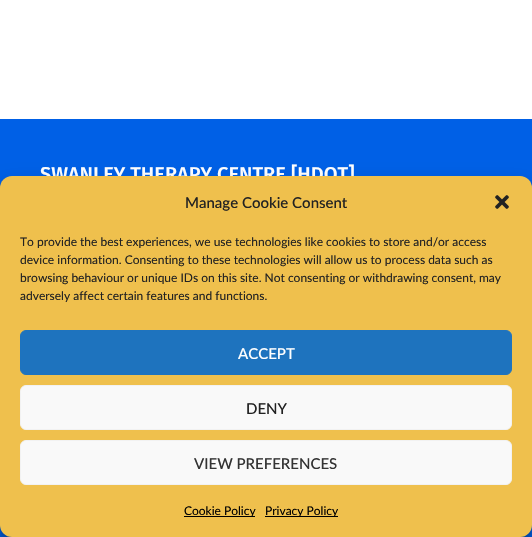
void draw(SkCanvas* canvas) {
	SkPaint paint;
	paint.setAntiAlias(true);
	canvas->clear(0xffffffff);
	paint.setColor(0xff0060e6);
	canvas->drawRect(SkRect::MakeXYWH(0, 119, 532, 418), paint);
	SkFont f1(fontMgr->matchFamilyStyle("Fira Sans", SkFontStyle(500, SkFontStyle::kNormal_Width, SkFontStyle::kUpright_Slant)), 20);
	f1.setSubpixel(true);
	paint.setColor(0xffffffff);
	canvas->drawString("SWANLEY THERAPY CENTRE [HDOT]", 40, 181, f1, paint);
	paint.setColor(0x3b000000);
	paint.setMaskFilter(SkMaskFilter::MakeBlur(kNormal_SkBlurStyle, 3));
	canvas->drawRoundRect(SkRect::MakeXYWH(0, 182, 532, 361), 12, 12, paint);
	paint.setMaskFilter(nullptr);
	paint.setColor(0x30000000);
	paint.setMaskFilter(SkMaskFilter::MakeBlur(kNormal_SkBlurStyle, 10));
	canvas->drawRoundRect(SkRect::MakeXYWH(0, 186, 532, 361), 12, 12, paint);
	paint.setMaskFilter(nullptr);
	paint.setColor(0xffefc04d);
	canvas->drawRoundRect(SkRect::MakeXYWH(0, 176, 532, 361), 12, 12, paint);
	SkFont f2(fontMgr->matchFamilyStyle("Lato", SkFontStyle(500, SkFontStyle::kNormal_Width, SkFontStyle::kUpright_Slant)), 15);
	f2.setSubpixel(true);
	paint.setColor(0xff222222);
	canvas->drawString("Manage Cookie Consent", 185, 208, f2, paint);
	canvas->drawImageRect(SkImages::DeferredFromEncodedData(SkData::MakeFromFileName("img1.png")), SkRect::MakeXYWH(495, 195, 14, 14), SkSamplingOptions());
	SkFont f3(fontMgr->matchFamilyStyle("Lato", SkFontStyle::Normal()), 12);
	f3.setSubpixel(true);
	canvas->drawString("To provide the best experiences, we use technologies like cookies to store and/or access", 20, 246, f3, paint);
	canvas->drawString("device information. Consenting to these technologies will allow us to process data such as", 20, 264, f3, paint);
	canvas->drawString("browsing behaviour or unique IDs on this site. Not consenting or withdrawing consent, may", 20, 282, f3, paint);
	canvas->drawString("adversely affect certain features and functions.", 20, 300, f3, paint);
	paint.setColor(0xff1e73be);
	canvas->drawRoundRect(SkRect::MakeXYWH(20.5, 330.5, 491, 44), 5.5, 5.5, paint);
	paint.setStroke(true);
	paint.setStrokeWidth(1);
	canvas->drawRoundRect(SkRect::MakeXYWH(20.5, 330.5, 491, 44), 5.5, 5.5, paint);
	paint.setStroke(false);
	paint.setColor(0xffffffff);
	canvas->drawString("ACCEPT", 238, 359, f2, paint);
	paint.setColor(0xfff9f9f9);
	canvas->drawRoundRect(SkRect::MakeXYWH(20.5, 385.5, 491, 44), 5.5, 5.5, paint);
	paint.setStroke(true);
	paint.setColor(0xfff2f2f2);
	canvas->drawRoundRect(SkRect::MakeXYWH(20.5, 385.5, 491, 44), 5.5, 5.5, paint);
	paint.setStroke(false);
	paint.setColor(0xff222222);
	canvas->drawString("DENY", 246, 414, f2, paint);
	paint.setColor(0xfff9f9f9);
	canvas->drawRoundRect(SkRect::MakeXYWH(20.5, 440.5, 491, 44), 5.5, 5.5, paint);
	paint.setStroke(true);
	paint.setColor(0xfff2f2f2);
	canvas->drawRoundRect(SkRect::MakeXYWH(20.5, 440.5, 491, 44), 5.5, 5.5, paint);
	paint.setStroke(false);
	paint.setColor(0xff333333);
	canvas->drawString("VIEW PREFERENCES", 194, 469, f2, paint);
	paint.setColor(0xff000000);
	canvas->drawRect(SkRect::MakeXYWH(184, 516, 71, 1), paint);
	canvas->drawString("Cookie Policy", 184, 515, f3, paint);
	canvas->drawRect(SkRect::MakeXYWH(265, 516, 73, 1), paint);
	canvas->drawString("Privacy Policy", 265, 515, f3, paint);
}
